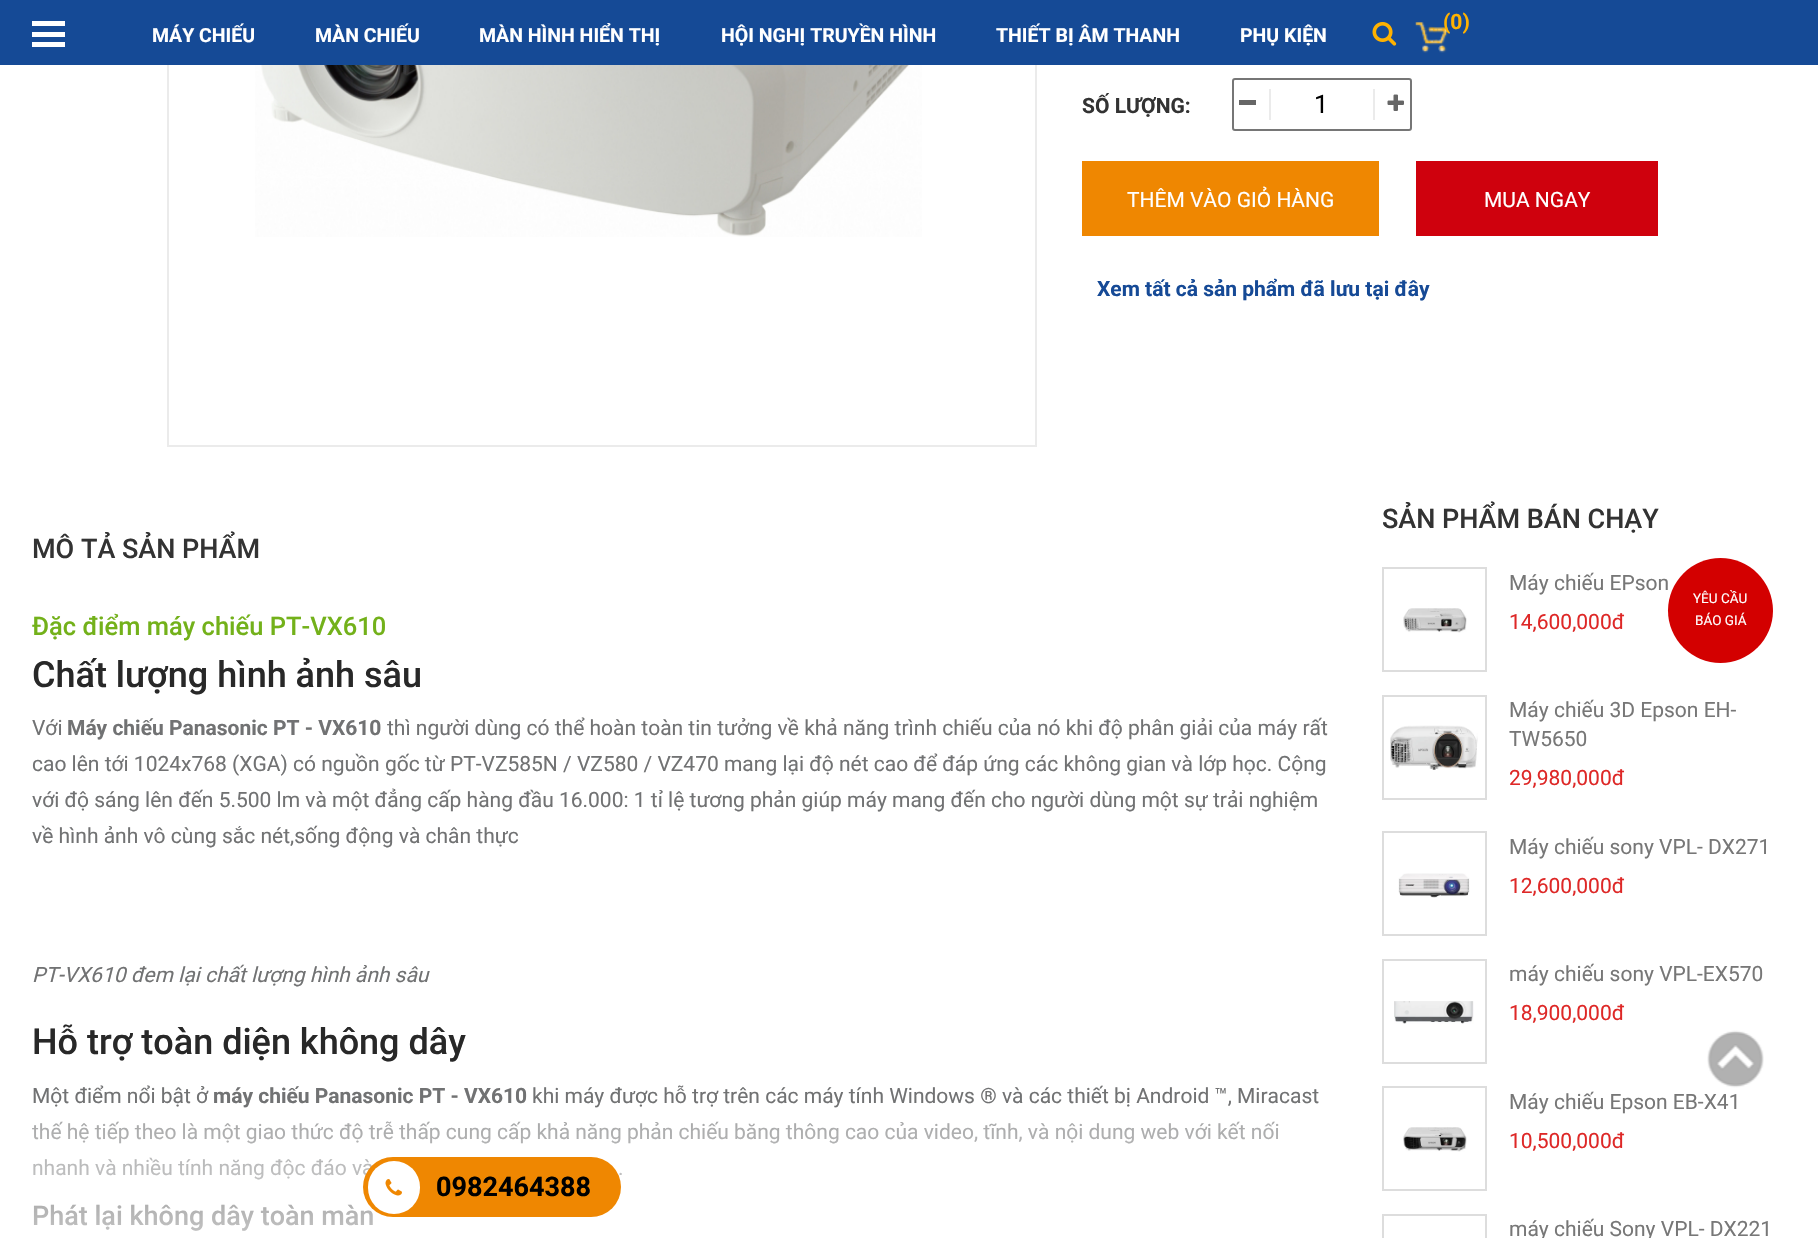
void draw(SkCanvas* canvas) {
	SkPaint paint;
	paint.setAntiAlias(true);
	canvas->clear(0xffffffff);
	paint.setStroke(true);
	paint.setStrokeWidth(2);
	paint.setColor(0xffebebeb);
	canvas->drawRect(SkRect::MakeXYWH(168, -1, 868, 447), paint);
	paint.setStroke(false);
	paint.setColor(0xff154a96);
	canvas->drawRect(SkRect::MakeXYWH(0, 0, 1818, 65), paint);
	paint.setColor(0xffffffff);
	canvas->drawRect(SkRect::MakeXYWH(32, 21, 33, 5), paint);
	canvas->drawRect(SkRect::MakeXYWH(32, 32, 33, 5), paint);
	canvas->drawRect(SkRect::MakeXYWH(32, 42, 33, 5), paint);
	SkFont f1(fontMgr->matchFamilyStyle("Roboto", SkFontStyle::Bold()), 19.5);
	f1.setSubpixel(true);
	canvas->drawString("MÁY CHIẾU", 152, 42, f1, paint);
	canvas->drawString("MÀN CHIẾU", 315, 42, f1, paint);
	canvas->drawString("MÀN HÌNH HIỂN THỊ", 479, 42, f1, paint);
	canvas->drawString("HỘI NGHỊ TRUYỀN HÌNH", 721, 42, f1, paint);
	canvas->drawString("THIẾT BỊ ÂM THANH", 996, 42, f1, paint);
	canvas->drawString("PHỤ KIỆN", 1240, 42, f1, paint);
	canvas->drawImageRect(SkImages::DeferredFromEncodedData(SkData::MakeFromFileName("img1.png")), SkRect::MakeXYWH(1372, 22, 25, 24), SkSamplingOptions());
	canvas->drawImageRect(SkImages::DeferredFromEncodedData(SkData::MakeFromFileName("img2.png")), SkRect::MakeXYWH(1415, 22, 33, 31), SkSamplingOptions());
	SkFont f2(fontMgr->matchFamilyStyle("Roboto", SkFontStyle::Bold()), 21);
	f2.setSubpixel(true);
	paint.setColor(0xffffb200);
	canvas->drawString("(0)", 1443, 29, f2, paint);
	canvas->drawImageRect(SkImages::DeferredFromEncodedData(SkData::MakeFromFileName("img3.png")), SkRect::MakeXYWH(255, 65, 667, 172), SkSamplingOptions());
	paint.setColor(0xff333333);
	canvas->drawString("SỐ LƯỢNG:", 1082, 113, f2, paint);
	paint.setStroke(true);
	paint.setColor(0xff767676);
	canvas->drawRoundRect(SkRect::MakeXYWH(1233, 79, 178, 51), 2, 2, paint);
	paint.setStroke(false);
	paint.setColor(0xffebebeb);
	canvas->drawRect(SkRect::MakeXYWH(1269, 89, 2, 31), paint);
	paint.setColor(0xff666666);
	canvas->drawRect(SkRect::MakeXYWH(1239, 100, 17, 5), paint);
	paint.setColor(0xffebebeb);
	canvas->drawRect(SkRect::MakeXYWH(1373, 89, 2, 31), paint);
	canvas->drawImageRect(SkImages::DeferredFromEncodedData(SkData::MakeFromFileName("img4.png")), SkRect::MakeXYWH(1387, 94, 17, 17), SkSamplingOptions());
	SkFont f3(fontMgr->matchFamilyStyle("Roboto", SkFontStyle::Normal()), 25.5);
	f3.setSubpixel(true);
	paint.setColor(0xff000000);
	canvas->drawString("1", 1314, 113, f3, paint);
	paint.setColor(0xffef8701);
	canvas->drawRect(SkRect::MakeXYWH(1082, 161, 297, 75), paint);
	SkFont f4(fontMgr->matchFamilyStyle("Roboto", SkFontStyle::Normal()), 21);
	f4.setSubpixel(true);
	paint.setColor(0xffffffff);
	canvas->drawString("THÊM VÀO GIỎ HÀNG", 1127, 207, f4, paint);
	paint.setColor(0xffcf010d);
	canvas->drawRect(SkRect::MakeXYWH(1416, 161, 242, 75), paint);
	paint.setColor(0xffffffff);
	canvas->drawString("MUA NGAY", 1484, 207, f4, paint);
	paint.setColor(0xff164a96);
	canvas->drawString("Xem tất cả sản phẩm đã lưu tại đây", 1097, 296, f2, paint);
	SkFont f5(fontMgr->matchFamilyStyle("Roboto", SkFontStyle(500, SkFontStyle::kNormal_Width, SkFontStyle::kUpright_Slant)), 27);
	f5.setSubpixel(true);
	paint.setColor(0xff333333);
	canvas->drawString("MÔ TẢ SẢN PHẨM", 32, 558, f5, paint);
	SkFont f6(fontMgr->matchFamilyStyle("Roboto", SkFontStyle(500, SkFontStyle::kNormal_Width, SkFontStyle::kUpright_Slant)), 25.5);
	f6.setSubpixel(true);
	paint.setColor(0xff73b11a);
	canvas->drawString("Đặc điểm máy chiếu PT-VX610", 32, 635, f6, paint);
	SkFont f7(fontMgr->matchFamilyStyle("Roboto", SkFontStyle(500, SkFontStyle::kNormal_Width, SkFontStyle::kUpright_Slant)), 36);
	f7.setSubpixel(true);
	paint.setColor(0xff282828);
	canvas->drawString("Chất lượng hình ảnh sâu", 32, 687, f7, paint);
	paint.setColor(0xff717273);
	canvas->drawString("Với", 32, 735, f4, paint);
	canvas->drawString("Máy chiếu Panasonic PT - VX610", 67, 735, f2, paint);
	canvas->drawString("thì người dùng có thể hoàn toàn tin tưởng về khả năng trình chiếu của nó khi độ phân giải của máy rất", 387, 735, f4, paint);
	canvas->drawString("cao lên tới 1024x768 (XGA) có nguồn gốc từ PT-VZ585N / VZ580 / VZ470 mang lại độ nét cao để đáp ứng các không gian và lớp học. Cộng", 32, 771, f4, paint);
	canvas->drawString("với độ sáng lên đến 5.500 lm và một đẳng cấp hàng đầu 16.000: 1 tỉ lệ tương phản giúp máy mang đến cho người dùng một sự trải nghiệm", 32, 807, f4, paint);
	canvas->drawString("về hình ảnh vô cùng sắc nét,sống động và chân thực", 32, 843, f4, paint);
	SkFont f8(fontMgr->matchFamilyStyle("Roboto", SkFontStyle::Italic()), 21);
	f8.setSubpixel(true);
	canvas->drawString("PT-VX610 đem lại chất lượng hình ảnh sâu", 32, 982, f8, paint);
	paint.setColor(0xff282828);
	canvas->drawString("Hỗ trợ toàn diện không dây", 32, 1054, f7, paint);
	paint.setColor(0xff717273);
	canvas->drawString("Một điểm nổi bật ở", 32, 1103, f4, paint);
	canvas->drawString("máy chiếu Panasonic PT - VX610", 213, 1103, f2, paint);
	canvas->drawString("khi máy được hỗ trợ trên các máy tính Windows ® và các thiết bị Android ™, Miracast", 532, 1103, f4, paint);
	canvas->drawString("thế hệ tiếp theo là một giao thức độ trễ thấp cung cấp khả năng phản chiếu băng thông cao của video, tĩnh, và nội dung web với kết nối", 32, 1139, f4, paint);
	canvas->drawString("nhanh và nhiều tính năng độc đáo và", 32, 1175, f4, paint);
	canvas->drawString(".", 618, 1175, f4, paint);
	paint.setColor(0xff282828);
	canvas->drawString("Phát lại không dây toàn màn", 32, 1225, f5, paint);
	{
		const SkColor colors[] = {0xffffffff, 0x59ffffff};
		const float stops[] = {0, 1};
		const SkPoint ends[] = {{684, 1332}, {684, 1107}};
		paint.setShader(SkGradientShader::MakeLinear(ends, colors, stops, 2, SkTileMode::kClamp));
		paint.setAlpha(255);
	}
	canvas->drawRect(SkRect::MakeXYWH(32, 1107, 1246, 124), paint);
	paint.setShader(nullptr);
	paint.setColor(0xff333333);
	canvas->drawString("SẢN PHẨM BÁN CHẠY", 1382, 528, f5, paint);
	paint.setStroke(true);
	paint.setColor(0xffdddddd);
	canvas->drawRect(SkRect::MakeXYWH(1383, 568, 103, 103), paint);
	canvas->drawImageRect(SkImages::DeferredFromEncodedData(SkData::MakeFromFileName("img5.png")), SkRect::MakeXYWH(1403, 608, 64, 25), SkSamplingOptions());
	paint.setStroke(false);
	paint.setColor(0xff777777);
	canvas->drawString("Máy chiếu EPson", 1509, 590, f4, paint);
	paint.setColor(0xffde2827);
	canvas->drawString("14,600,000đ", 1509, 629, f4, paint);
	paint.setStroke(true);
	paint.setColor(0xffdddddd);
	canvas->drawRect(SkRect::MakeXYWH(1383, 696, 103, 103), paint);
	canvas->drawImageRect(SkImages::DeferredFromEncodedData(SkData::MakeFromFileName("img6.png")), SkRect::MakeXYWH(1390, 725, 88, 45), SkSamplingOptions());
	paint.setStroke(false);
	paint.setColor(0xff777777);
	canvas->drawString("Máy chiếu 3D Epson EH-", 1509, 717, f4, paint);
	canvas->drawString("TW5650", 1509, 746, f4, paint);
	paint.setColor(0xffde2827);
	canvas->drawString("29,980,000đ", 1509, 785, f4, paint);
	paint.setStroke(true);
	paint.setColor(0xffdddddd);
	canvas->drawRect(SkRect::MakeXYWH(1383, 832, 103, 103), paint);
	canvas->drawImageRect(SkImages::DeferredFromEncodedData(SkData::MakeFromFileName("img7.png")), SkRect::MakeXYWH(1398, 873, 72, 25), SkSamplingOptions());
	paint.setStroke(false);
	paint.setColor(0xff777777);
	canvas->drawString("Máy chiếu sony VPL- DX271", 1509, 854, f4, paint);
	paint.setColor(0xffde2827);
	canvas->drawString("12,600,000đ", 1509, 893, f4, paint);
	paint.setStroke(true);
	paint.setColor(0xffdddddd);
	canvas->drawRect(SkRect::MakeXYWH(1383, 960, 103, 103), paint);
	canvas->drawImageRect(SkImages::DeferredFromEncodedData(SkData::MakeFromFileName("img8.png")), SkRect::MakeXYWH(1394, 1001, 80, 23), SkSamplingOptions());
	paint.setStroke(false);
	paint.setColor(0xff777777);
	canvas->drawString("máy chiếu sony VPL-EX570", 1509, 981, f4, paint);
	paint.setColor(0xffde2827);
	canvas->drawString("18,900,000đ", 1509, 1020, f4, paint);
	paint.setStroke(true);
	paint.setColor(0xffdddddd);
	canvas->drawRect(SkRect::MakeXYWH(1383, 1087, 103, 103), paint);
	canvas->drawImageRect(SkImages::DeferredFromEncodedData(SkData::MakeFromFileName("img9.png")), SkRect::MakeXYWH(1403, 1127, 64, 25), SkSamplingOptions());
	paint.setStroke(false);
	paint.setColor(0xff777777);
	canvas->drawString("Máy chiếu Epson EB-X41", 1509, 1109, f4, paint);
	paint.setColor(0xffde2827);
	canvas->drawString("10,500,000đ", 1509, 1148, f4, paint);
	paint.setStroke(true);
	paint.setColor(0xffdddddd);
	canvas->drawRect(SkRect::MakeXYWH(1383, 1215, 103, 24), paint);
	paint.setStroke(false);
	paint.setColor(0xff777777);
	canvas->drawString("máy chiếu Sony VPL- DX221", 1509, 1236, f4, paint);
	paint.setColor(0xffd30000);
	canvas->drawCircle(1720.5, 610.5, 52.5, paint);
	SkFont f9(fontMgr->matchFamilyStyle("Roboto", SkFontStyle::Normal()), 13.5);
	f9.setSubpixel(true);
	paint.setColor(0xffffffff);
	canvas->drawString("YÊU CẦU", 1693, 603, f9, paint);
	canvas->drawString("BÁO GIÁ", 1695, 625, f9, paint);
	canvas->drawImageRect(SkImages::DeferredFromEncodedData(SkData::MakeFromFileName("img10.png")), SkRect::MakeXYWH(1707, 1030, 57, 58), SkSamplingOptions());
	paint.setColor(0xffef8701);
	canvas->drawRoundRect(SkRect::MakeXYWH(363, 1157, 258, 60), 30, 30, paint);
	paint.setColor(0xffffffff);
	canvas->drawRoundRect(SkRect::MakeXYWH(368, 1161, 52, 53), 26, 26, paint);
	canvas->drawImageRect(SkImages::DeferredFromEncodedData(SkData::MakeFromFileName("img11.png")), SkRect::MakeXYWH(385, 1179, 17, 17), SkSamplingOptions());
	SkFont f10(fontMgr->matchFamilyStyle("Roboto", SkFontStyle::Bold()), 27);
	f10.setSubpixel(true);
	paint.setColor(0xff000000);
	canvas->drawString("0982464388", 436, 1196, f10, paint);
}
